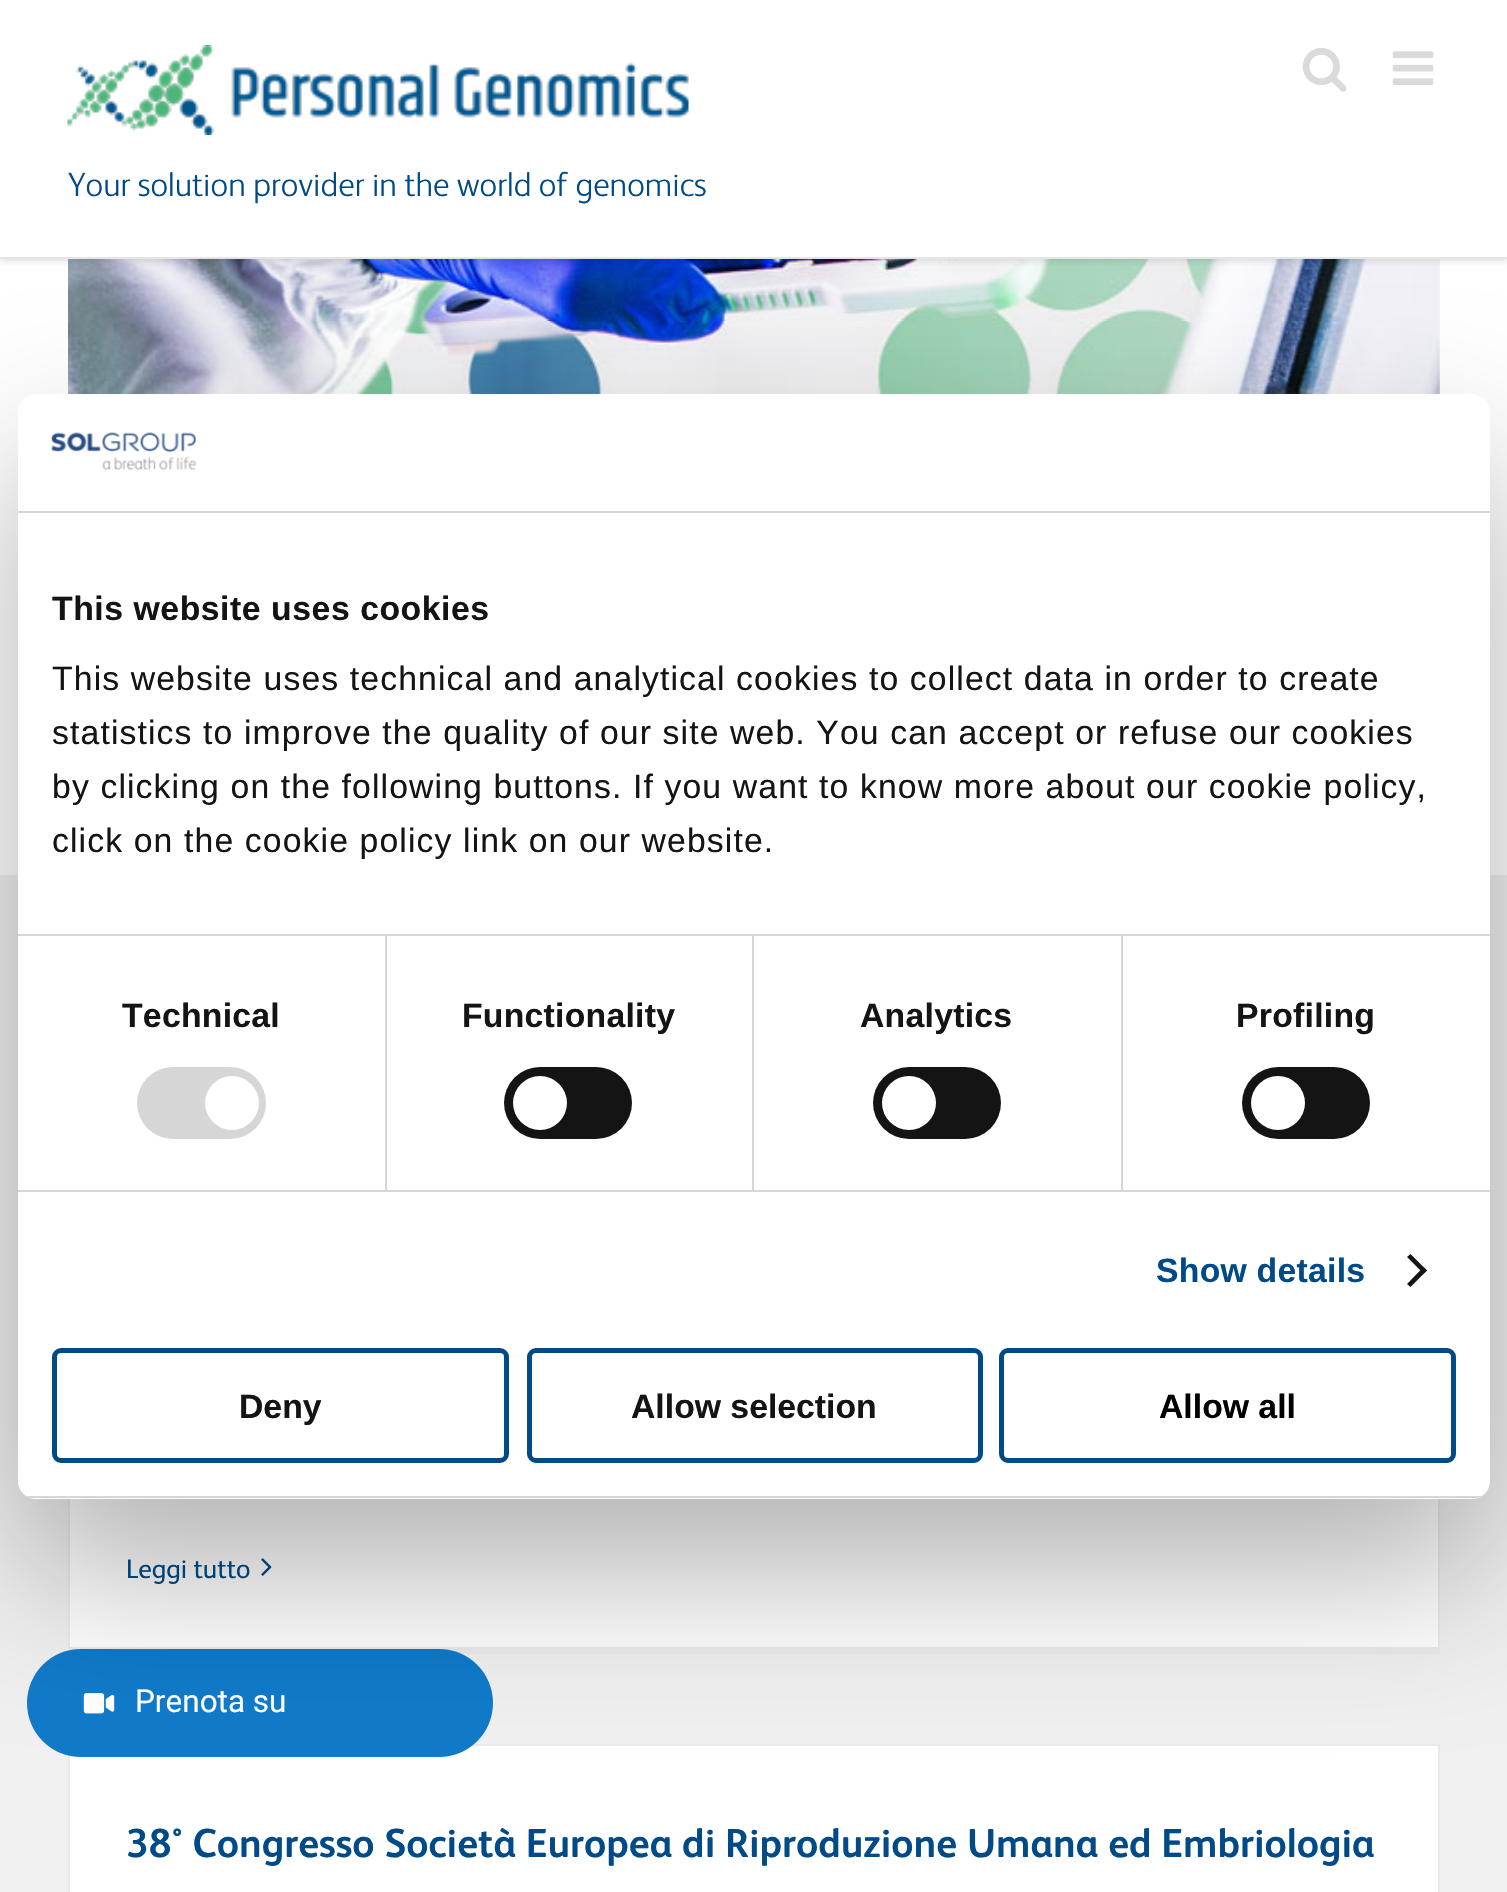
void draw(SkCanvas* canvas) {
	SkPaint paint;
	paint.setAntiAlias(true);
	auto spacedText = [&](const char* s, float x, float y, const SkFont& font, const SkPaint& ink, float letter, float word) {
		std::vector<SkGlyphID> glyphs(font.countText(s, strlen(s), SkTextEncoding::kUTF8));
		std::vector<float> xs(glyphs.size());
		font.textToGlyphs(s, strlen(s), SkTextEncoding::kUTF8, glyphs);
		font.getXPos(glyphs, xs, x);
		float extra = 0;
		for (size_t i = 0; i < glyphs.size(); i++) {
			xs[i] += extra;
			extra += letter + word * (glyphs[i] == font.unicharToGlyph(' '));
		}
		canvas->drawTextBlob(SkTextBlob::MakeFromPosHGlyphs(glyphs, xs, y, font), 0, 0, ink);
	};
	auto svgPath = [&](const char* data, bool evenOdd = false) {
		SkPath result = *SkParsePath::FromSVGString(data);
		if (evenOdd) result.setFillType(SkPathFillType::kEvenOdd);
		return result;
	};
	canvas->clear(0xffffffff);
	canvas->drawImageRect(SkImages::DeferredFromEncodedData(SkData::MakeFromFileName("img4.png")), SkRect::MakeXYWH(68, 259, 1372, 135), SkSamplingOptions());
	paint.setColor(0x1f000000);
	paint.setMaskFilter(SkMaskFilter::MakeBlur(kNormal_SkBlurStyle, 3.5));
	canvas->drawRect(SkRect::MakeXYWH(0, 2, 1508, 259), paint);
	paint.setMaskFilter(nullptr);
	paint.setColor(0xffffffff);
	canvas->drawRect(SkRect::MakeXYWH(0, 0, 1507, 257), paint);
	paint.setColor(0xffe5e5e5);
	canvas->drawRect(SkRect::MakeXYWH(0, 257, 1507, 2), paint);
	canvas->drawImageRect(SkImages::DeferredFromEncodedData(SkData::MakeFromFileName("img1.png")), SkRect::MakeXYWH(1302, 48, 45, 44), SkSamplingOptions());
	canvas->drawImageRect(SkImages::DeferredFromEncodedData(SkData::MakeFromFileName("img2.png")), SkRect::MakeXYWH(1392, 51, 42, 34), SkSamplingOptions());
	canvas->drawImageRect(SkImages::DeferredFromEncodedData(SkData::MakeFromFileName("img3.png")), SkRect::MakeXYWH(67, 45, 622, 90), SkSamplingOptions());
	SkFont f1(fontMgr->matchFamilyStyle("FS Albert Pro", SkFontStyle(300, SkFontStyle::kNormal_Width, SkFontStyle::kUpright_Slant)), 33.75);
	f1.setSubpixel(true);
	paint.setColor(0xff004b87);
	canvas->drawString("Your solution provider in the world of genomics", 68, 196, f1, paint);
	paint.setColor(0xfff0f0f0);
	canvas->drawRect(SkRect::MakeXYWH(0, 875, 1507, 1017), paint);
	paint.setColor(0xffffffff);
	canvas->drawRect(SkRect::MakeXYWH(70, 1499, 1368, 148), paint);
	paint.setColor(0xffebeaea);
	canvas->drawRect(SkRect::MakeXYWH(1438, 1499, 2, 155), paint);
	canvas->drawRect(SkRect::MakeXYWH(68, 1647, 1372, 7), paint);
	canvas->drawRect(SkRect::MakeXYWH(68, 1499, 2, 155), paint);
	SkFont f2(fontMgr->matchFamilyStyle("FS Albert Pro", SkFontStyle::Normal()), 27);
	f2.setSubpixel(true);
	paint.setColor(0xff004b87);
	canvas->drawString("Leggi tutto", 126, 1578, f2, paint);
	canvas->drawImageRect(SkImages::DeferredFromEncodedData(SkData::MakeFromFileName("img5.png")), SkRect::MakeXYWH(261, 1558, 11, 18), SkSamplingOptions());
	paint.setColor(0xffffffff);
	canvas->drawRect(SkRect::MakeXYWH(70, 1746, 1368, 146), paint);
	paint.setColor(0xffebeaea);
	canvas->drawRect(SkRect::MakeXYWH(471, 1744, 969, 2), paint);
	canvas->drawRect(SkRect::MakeXYWH(1438, 1744, 2, 148), paint);
	canvas->drawRect(SkRect::MakeXYWH(68, 1755, 2, 137), paint);
	SkFont f3(fontMgr->matchFamilyStyle("FS Albert Pro", SkFontStyle::Bold()), 40.5);
	f3.setSubpixel(true);
	paint.setColor(0xff004b87);
	canvas->drawString("38° Congresso Società Europea di Riproduzione Umana ed Embriologia", 126, 1857, f3, paint);
	paint.setColor(0xff107aca);
	canvas->drawRoundRect(SkRect::MakeXYWH(27, 1649, 466, 108), 54, 54, paint);
	canvas->drawImageRect(SkImages::DeferredFromEncodedData(SkData::MakeFromFileName("img6.png")), SkRect::MakeXYWH(83, 1693, 32, 21), SkSamplingOptions());
	SkFont f4(fontMgr->matchFamilyStyle("Roboto", SkFontStyle::Normal()), 31.5);
	f4.setSubpixel(true);
	paint.setColor(0xffffffff);
	canvas->drawString("Prenota su", 135, 1712, f4, paint);
	paint.setColor(0x4d000000);
	paint.setMaskFilter(SkMaskFilter::MakeBlur(kNormal_SkBlurStyle, 76.5));
	canvas->drawRoundRect(SkRect::MakeXYWH(18, 466, 1472, 1105), 18, 18, paint);
	paint.setMaskFilter(nullptr);
	paint.setColor(0xffffffff);
	canvas->drawRoundRect(SkRect::MakeXYWH(18, 394, 1472, 1105), 18, 18, paint);
	paint.setColor(0xffd6d6d6);
	canvas->drawRect(SkRect::MakeXYWH(18, 511, 1472, 2), paint);
	canvas->drawImageRect(SkImages::DeferredFromEncodedData(SkData::MakeFromFileName("img7.png")), SkRect::MakeXYWH(51, 432, 145, 39), SkSamplingOptions());
	canvas->drawRect(SkRect::MakeXYWH(18, 934, 1472, 2), paint);
	SkFont f5(fontMgr->matchFamilyStyle("Liberation Sans", SkFontStyle::Bold()), 33.75);
	f5.setSubpixel(true);
	paint.setColor(0xff141414);
	spacedText("This website uses cookies", 52, 620, f5, paint, 0.55, 0);
	SkFont f6(fontMgr->matchFamilyStyle("Liberation Sans", SkFontStyle::Normal()), 33.75);
	f6.setSubpixel(true);
	spacedText("This website uses technical and analytical cookies to collect data in order to create", 52, 690, f6, paint, 1.12, 0);
	spacedText("statistics to improve the quality of our site web. You can accept or refuse our cookies", 52, 744, f6, paint, 1.12, 0);
	spacedText("by clicking on the following buttons. If you want to know more about our cookie policy,", 52, 798, f6, paint, 1.12, 0);
	spacedText("click on the cookie policy link on our website.", 52, 852, f6, paint, 1.12, 0);
	paint.setColor(0xffd6d6d6);
	canvas->drawRect(SkRect::MakeXYWH(18, 1190, 1472, 2), paint);
	canvas->drawRect(SkRect::MakeXYWH(385, 936, 2, 254), paint);
	paint.setColor(0xff141414);
	spacedText("Technical", 122, 1027, f5, paint, 0.25, 0);
	paint.setColor(0xffd6d6d6);
	canvas->drawRoundRect(SkRect::MakeXYWH(137, 1067, 129, 72), 36, 36, paint);
	paint.setColor(0xffffffff);
	canvas->drawCircle(232, 1103, 27, paint);
	paint.setColor(0xffd6d6d6);
	canvas->drawRect(SkRect::MakeXYWH(752, 936, 2, 254), paint);
	paint.setColor(0xff141414);
	spacedText("Functionality", 462, 1027, f5, paint, 0.25, 0);
	canvas->drawRoundRect(SkRect::MakeXYWH(504, 1067, 128, 72), 36, 36, paint);
	paint.setColor(0xffffffff);
	canvas->drawCircle(540, 1103, 27, paint);
	paint.setColor(0xffd6d6d6);
	canvas->drawRect(SkRect::MakeXYWH(1121, 936, 2, 254), paint);
	paint.setColor(0xff141414);
	spacedText("Analytics", 860, 1027, f5, paint, 0.25, 0);
	canvas->drawRoundRect(SkRect::MakeXYWH(873, 1067, 128, 72), 36, 36, paint);
	paint.setColor(0xffffffff);
	canvas->drawCircle(909, 1103, 27, paint);
	paint.setColor(0xff141414);
	spacedText("Profiling", 1236, 1027, f5, paint, 0.25, 0);
	canvas->drawRoundRect(SkRect::MakeXYWH(1242, 1067, 128, 72), 36, 36, paint);
	paint.setColor(0xffffffff);
	canvas->drawCircle(1278, 1103, 27, paint);
	paint.setColor(0xff004b87);
	spacedText("Show details", 1156, 1282, f5, paint, 0.25, 0);
	paint.setColor(0xff141414);
	canvas->drawPath(svgPath("M1410.5 1254L1427 1270.5L1423.5 1273.5L1407 1257Z"), paint);
	canvas->drawPath(svgPath("M1423.5 1267L1427 1270.5L1410.5 1287L1407 1284Z"), paint);
	canvas->save();
	canvas->clipPath(svgPath("M36 394H1472C1482 394 1490 402 1490 412V1481C1490 1491 1482 1499 1472 1499H36C26 1499 18 1491 18 1481V412C18 402 26 394 36 394Z"), true);
	paint.setColor(0xffd6d6d6);
	canvas->drawRect(SkRect::MakeXYWH(18, 1496, 1472, 2), paint);
	canvas->restore();
	paint.setStroke(true);
	paint.setStrokeWidth(5);
	paint.setColor(0xff004b87);
	canvas->drawRoundRect(SkRect::MakeXYWH(54.5, 1350.5, 452, 110), 6.5, 6.5, paint);
	paint.setStroke(false);
	paint.setColor(0xff141414);
	canvas->drawString("Deny", 239, 1418, f5, paint);
	paint.setStroke(true);
	paint.setColor(0xff004b87);
	canvas->drawRoundRect(SkRect::MakeXYWH(529.5, 1350.5, 451, 110), 6.5, 6.5, paint);
	paint.setStroke(false);
	paint.setColor(0xff141414);
	canvas->drawString("Allow selection", 631, 1418, f5, paint);
	paint.setStroke(true);
	paint.setColor(0xff004b87);
	canvas->drawRoundRect(SkRect::MakeXYWH(1001.5, 1350.5, 452, 110), 6.5, 6.5, paint);
	paint.setStroke(false);
	paint.setColor(0xff000000);
	canvas->drawString("Allow all", 1159, 1418, f5, paint);
}
